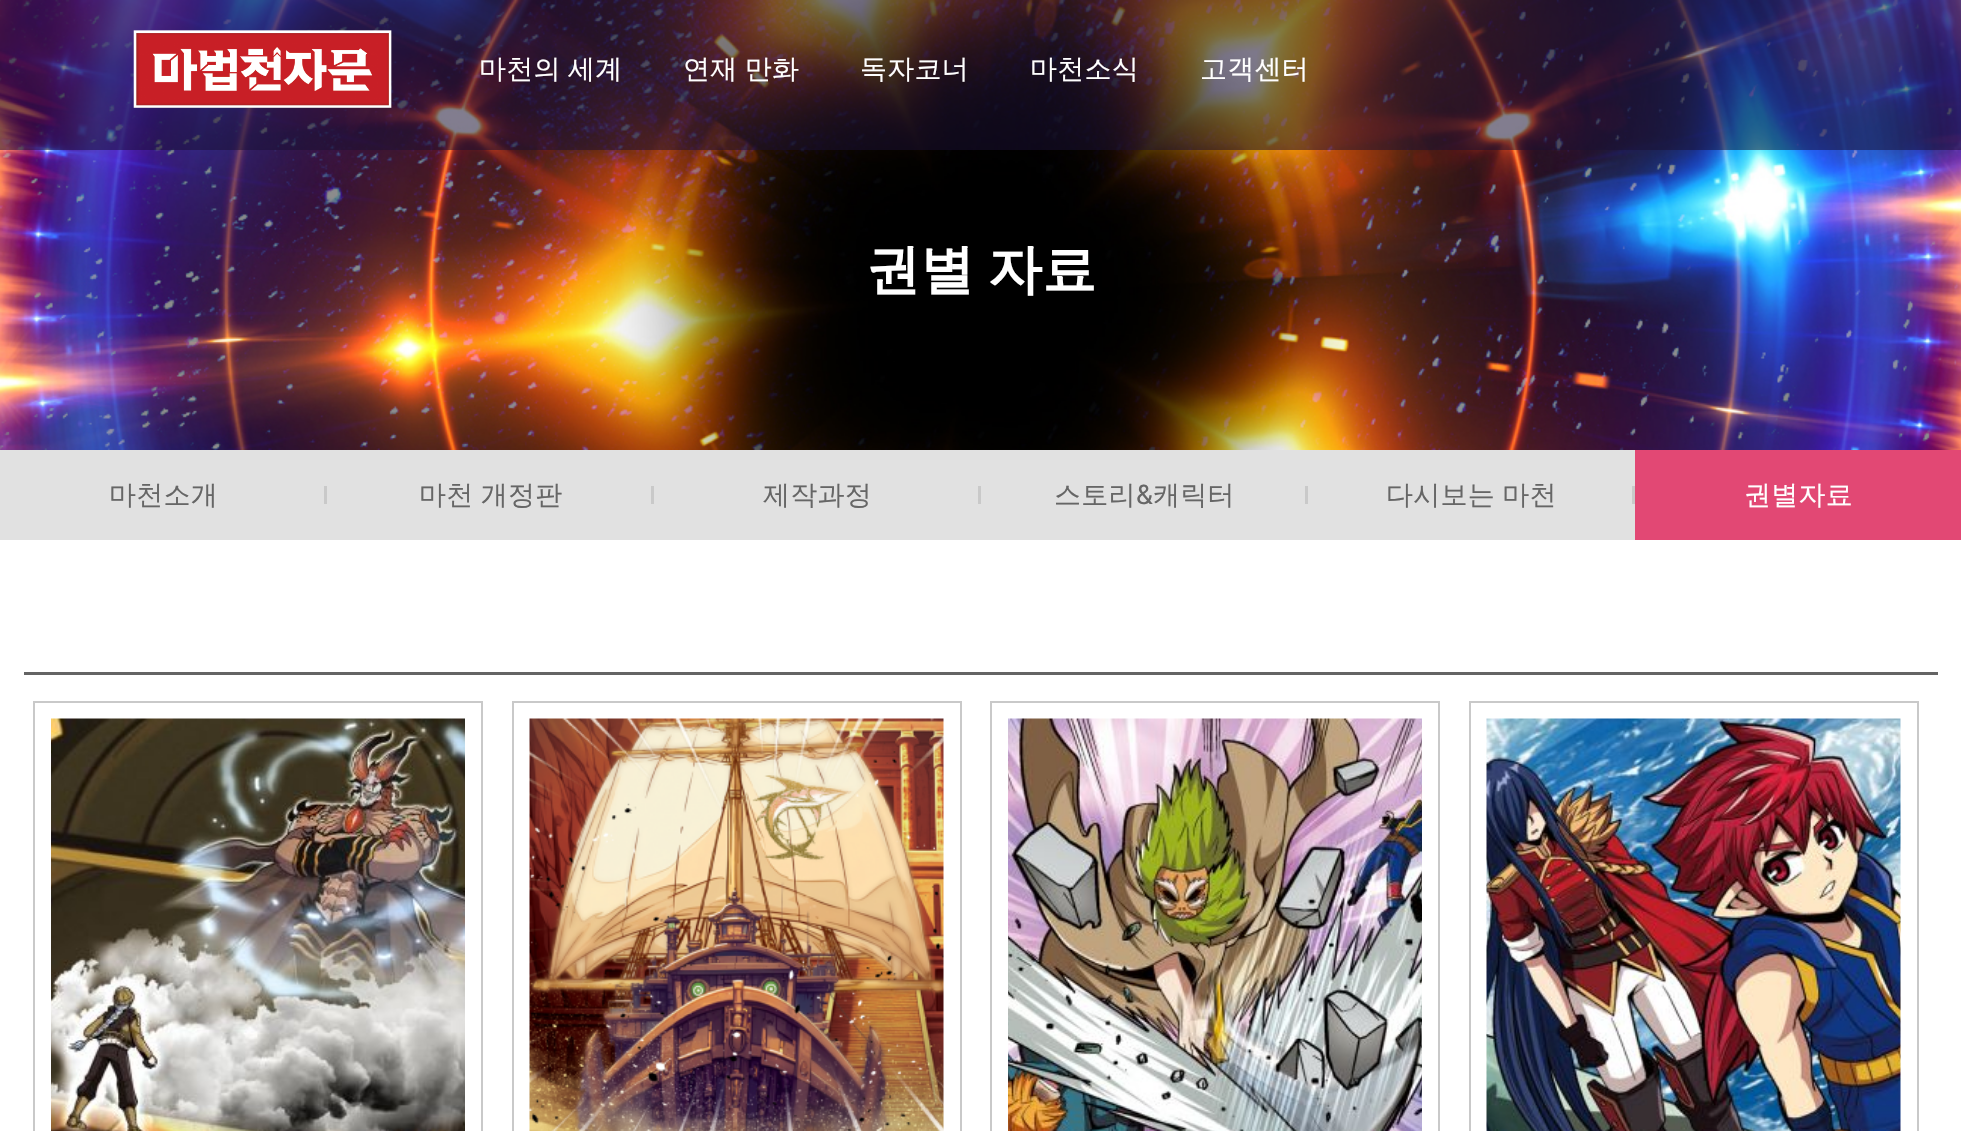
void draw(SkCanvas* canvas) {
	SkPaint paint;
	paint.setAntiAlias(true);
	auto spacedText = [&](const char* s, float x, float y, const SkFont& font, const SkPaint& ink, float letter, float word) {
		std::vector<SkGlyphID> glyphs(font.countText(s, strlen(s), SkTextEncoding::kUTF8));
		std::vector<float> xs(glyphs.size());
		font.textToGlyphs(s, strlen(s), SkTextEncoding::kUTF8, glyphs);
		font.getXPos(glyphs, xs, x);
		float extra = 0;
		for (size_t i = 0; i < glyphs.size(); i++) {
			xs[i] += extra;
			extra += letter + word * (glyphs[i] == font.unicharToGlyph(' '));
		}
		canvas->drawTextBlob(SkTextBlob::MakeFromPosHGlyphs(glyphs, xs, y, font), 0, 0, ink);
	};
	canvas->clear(0xffffffff);
	canvas->drawImageRect(SkImages::DeferredFromEncodedData(SkData::MakeFromFileName("img2.png")), SkRect::MakeXYWH(0, 0, 1961, 450), SkSamplingOptions());
	paint.setColor(0x8a180f30);
	canvas->drawRect(SkRect::MakeXYWH(0, 0, 1961, 150), paint);
	canvas->drawImageRect(SkImages::DeferredFromEncodedData(SkData::MakeFromFileName("img1.png")), SkRect::MakeXYWH(133, 30, 259, 78), SkSamplingOptions());
	SkFont f1(fontMgr->matchFamilyStyle("WenQuanYi Zen Hei", SkFontStyle(500, SkFontStyle::kNormal_Width, SkFontStyle::kUpright_Slant)), 27);
	f1.setSubpixel(true);
	paint.setColor(0xffffffff);
	spacedText("마천의 세계", 479, 78, f1, paint, 0.25, -1);
	spacedText("연재 만화", 683, 78, f1, paint, 0.25, -1);
	spacedText("독자코너", 860, 78, f1, paint, 0.25, 0);
	spacedText("마천소식", 1030, 78, f1, paint, 0.25, 0);
	spacedText("고객센터", 1200, 78, f1, paint, 0.25, 0);
	SkFont f2(fontMgr->matchFamilyStyle("WenQuanYi Zen Hei", SkFontStyle::Bold()), 54);
	f2.setSubpixel(true);
	spacedText("권별 자료", 866, 288, f2, paint, 0.25, -3);
	paint.setColor(0xffe1e1e1);
	canvas->drawRect(SkRect::MakeXYWH(0, 450, 1635, 90), paint);
	paint.setColor(0xff666666);
	spacedText("마천소개", 109, 504, f1, paint, 0.25, 0);
	paint.setColor(0xffc9c9c9);
	canvas->drawRect(SkRect::MakeXYWH(324, 486, 3, 18), paint);
	paint.setColor(0xff666666);
	spacedText("마천 개정판", 419, 504, f1, paint, 0.25, -1);
	paint.setColor(0xffc9c9c9);
	canvas->drawRect(SkRect::MakeXYWH(651, 486, 3, 18), paint);
	paint.setColor(0xff666666);
	spacedText("제작과정", 763, 504, f1, paint, 0.25, 0);
	paint.setColor(0xffc9c9c9);
	canvas->drawRect(SkRect::MakeXYWH(978, 486, 3, 18), paint);
	paint.setColor(0xff666666);
	spacedText("스토리", 1054, 504, f1, paint, 0.25, 0);
	SkFont f3(fontMgr->matchFamilyStyle("Roboto", SkFontStyle::Normal()), 27);
	f3.setSubpixel(true);
	spacedText("&", 1136, 504, f3, paint, 0.25, 0);
	spacedText("캐릭터", 1153, 504, f1, paint, 0.25, 0);
	paint.setColor(0xffc9c9c9);
	canvas->drawRect(SkRect::MakeXYWH(1305, 486, 3, 18), paint);
	paint.setColor(0xff666666);
	spacedText("다시보는 마천", 1386, 504, f1, paint, 0.25, -1);
	paint.setColor(0xffc9c9c9);
	canvas->drawRect(SkRect::MakeXYWH(1632, 486, 3, 18), paint);
	paint.setColor(0xffe24874);
	canvas->drawRect(SkRect::MakeXYWH(1635, 450, 326, 90), paint);
	paint.setColor(0xffffffff);
	spacedText("권별자료", 1744, 504, f1, paint, 0.25, 0);
	paint.setColor(0xff646464);
	canvas->drawRect(SkRect::MakeXYWH(24, 672, 1914, 3), paint);
	paint.setStroke(true);
	paint.setStrokeWidth(2);
	paint.setColor(0xffc9c9c9);
	canvas->drawRect(SkRect::MakeXYWH(34, 702, 448, 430), paint);
	canvas->drawImageRect(SkImages::DeferredFromEncodedData(SkData::MakeFromFileName("img3.png")), SkRect::MakeXYWH(51, 718, 414, 413), SkSamplingOptions());
	canvas->drawRect(SkRect::MakeXYWH(513, 702, 448, 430), paint);
	canvas->drawImageRect(SkImages::DeferredFromEncodedData(SkData::MakeFromFileName("img4.png")), SkRect::MakeXYWH(529, 718, 415, 413), SkSamplingOptions());
	canvas->drawRect(SkRect::MakeXYWH(991, 702, 448, 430), paint);
	canvas->drawImageRect(SkImages::DeferredFromEncodedData(SkData::MakeFromFileName("img5.png")), SkRect::MakeXYWH(1008, 718, 414, 413), SkSamplingOptions());
	canvas->drawRect(SkRect::MakeXYWH(1470, 702, 448, 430), paint);
	canvas->drawImageRect(SkImages::DeferredFromEncodedData(SkData::MakeFromFileName("img6.png")), SkRect::MakeXYWH(1486, 718, 415, 413), SkSamplingOptions());
}
